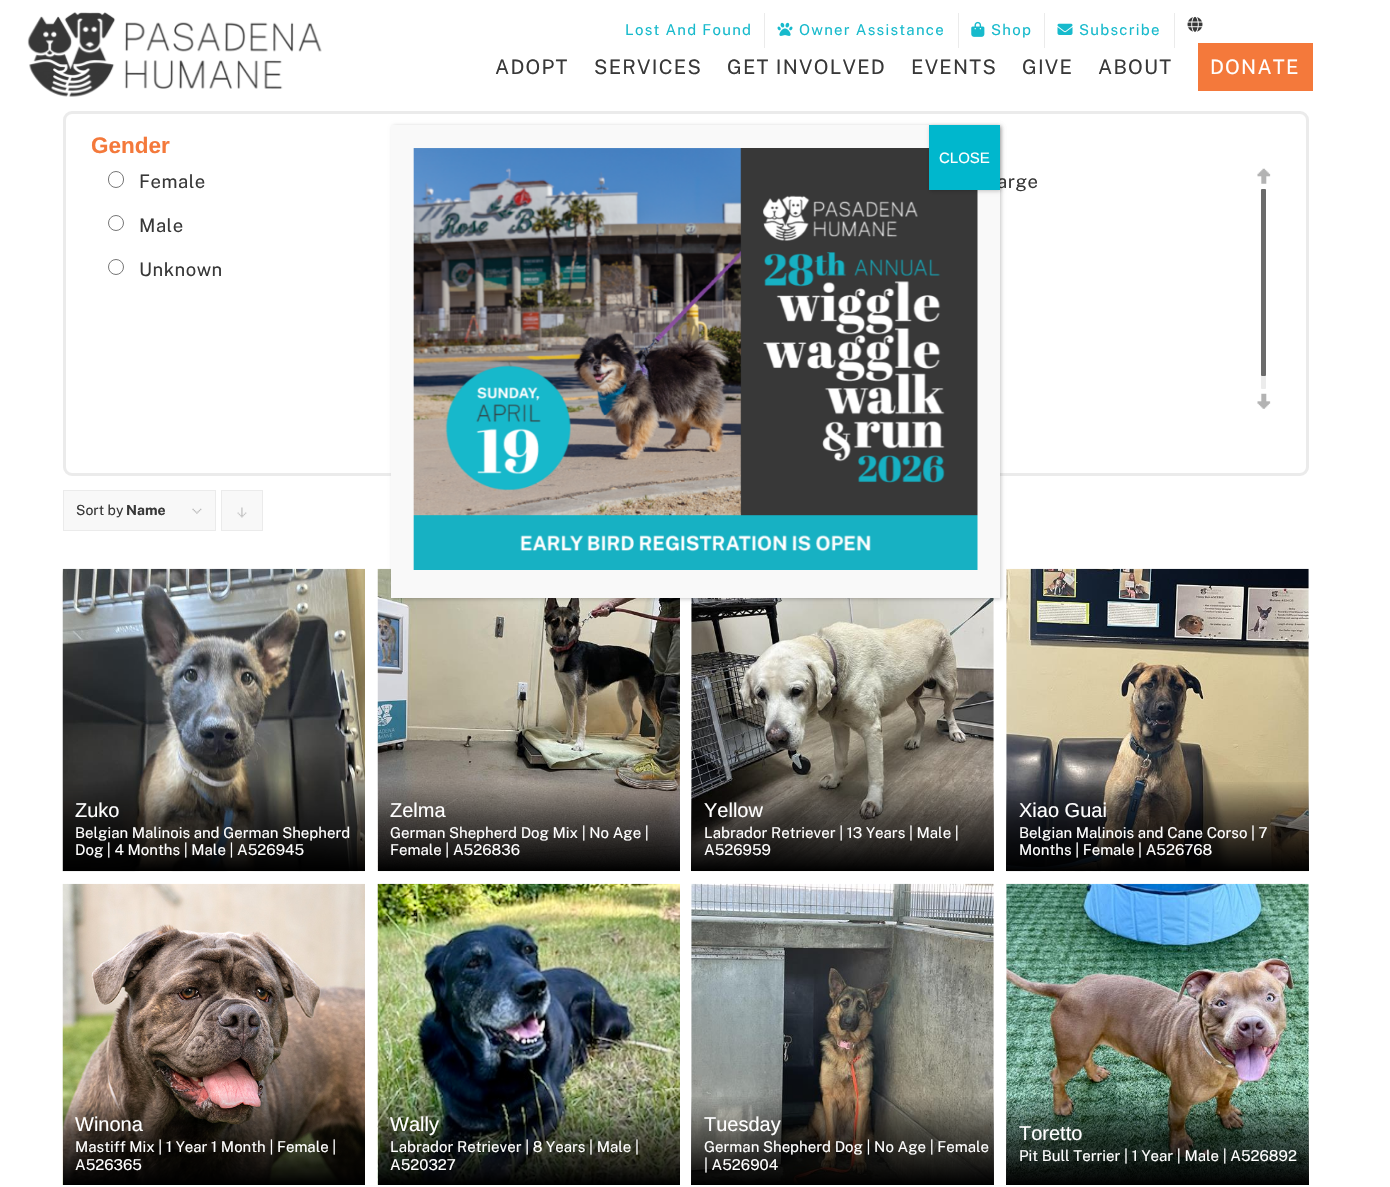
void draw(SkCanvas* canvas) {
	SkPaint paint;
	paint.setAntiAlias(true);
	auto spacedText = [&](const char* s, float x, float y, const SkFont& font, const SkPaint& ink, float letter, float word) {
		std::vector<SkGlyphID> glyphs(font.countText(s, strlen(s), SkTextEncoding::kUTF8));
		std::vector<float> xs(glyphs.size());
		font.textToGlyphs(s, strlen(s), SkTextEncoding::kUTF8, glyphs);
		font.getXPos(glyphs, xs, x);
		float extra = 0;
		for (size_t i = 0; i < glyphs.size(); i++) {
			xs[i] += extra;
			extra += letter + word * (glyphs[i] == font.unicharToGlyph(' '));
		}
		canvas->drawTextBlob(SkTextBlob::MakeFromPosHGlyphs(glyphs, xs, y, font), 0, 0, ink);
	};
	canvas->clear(0xffffffff);
	paint.setColor(0xffebebeb);
	canvas->drawRect(SkRect::MakeXYWH(764, 13, 1, 35), paint);
	SkFont f1(fontMgr->matchFamilyStyle("Public Sans", SkFontStyle::Normal()), 15);
	f1.setSubpixel(true);
	paint.setColor(0xff17bacc);
	spacedText("Lost And Found", 625, 35, f1, paint, 1.25, 0);
	paint.setColor(0xffebebeb);
	canvas->drawRect(SkRect::MakeXYWH(958, 13, 1, 35), paint);
	canvas->drawImageRect(SkImages::DeferredFromEncodedData(SkData::MakeFromFileName("img1.png")), SkRect::MakeXYWH(777, 22, 16, 14), SkSamplingOptions());
	paint.setColor(0xff17bacc);
	spacedText("Owner Assistance", 799, 35, f1, paint, 1.25, 0);
	paint.setColor(0xffebebeb);
	canvas->drawRect(SkRect::MakeXYWH(1044, 13, 1, 35), paint);
	canvas->drawImageRect(SkImages::DeferredFromEncodedData(SkData::MakeFromFileName("img2.png")), SkRect::MakeXYWH(971, 21, 14, 16), SkSamplingOptions());
	paint.setColor(0xff17bacc);
	spacedText("Shop", 991, 35, f1, paint, 1.25, 0);
	paint.setColor(0xffebebeb);
	canvas->drawRect(SkRect::MakeXYWH(1174, 13, 1, 35), paint);
	canvas->drawImageRect(SkImages::DeferredFromEncodedData(SkData::MakeFromFileName("img3.png")), SkRect::MakeXYWH(1057, 23, 16, 12), SkSamplingOptions());
	paint.setColor(0xff17bacc);
	spacedText("Subscribe", 1079, 35, f1, paint, 1.25, 0);
	canvas->drawImageRect(SkImages::DeferredFromEncodedData(SkData::MakeFromFileName("img4.png")), SkRect::MakeXYWH(1187, 16, 16, 16), SkSamplingOptions());
	canvas->drawImageRect(SkImages::DeferredFromEncodedData(SkData::MakeFromFileName("img5.png")), SkRect::MakeXYWH(27, 12, 295, 85), SkSamplingOptions());
	SkFont f2(fontMgr->matchFamilyStyle("Public Sans", SkFontStyle::Normal()), 20);
	f2.setSubpixel(true);
	paint.setColor(0xff383838);
	spacedText("ADOPT", 495, 74, f2, paint, 1.25, 0);
	spacedText("SERVICES", 594, 74, f2, paint, 1.25, 0);
	spacedText("GET INVOLVED", 727, 74, f2, paint, 1.25, 0);
	spacedText("EVENTS", 911, 74, f2, paint, 1.25, 0);
	spacedText("GIVE", 1022, 74, f2, paint, 1.25, 0);
	spacedText("ABOUT", 1098, 74, f2, paint, 1.25, 0);
	paint.setColor(0xfff4793b);
	canvas->drawRect(SkRect::MakeXYWH(1198, 43, 115, 48), paint);
	paint.setColor(0xffffffff);
	spacedText("DONATE", 1210, 74, f2, paint, 1.25, 0);
	paint.setStroke(true);
	paint.setStrokeWidth(3);
	paint.setColor(0xffebebeb);
	canvas->drawRoundRect(SkRect::MakeXYWH(64.5, 112.5, 1243, 362), 7.5, 7.5, paint);
	SkFont f3(fontMgr->matchFamilyStyle("Liberation Sans", SkFontStyle::Bold()), 22.5);
	f3.setSubpixel(true);
	paint.setStroke(false);
	paint.setColor(0xfff4793b);
	canvas->drawString("Gender", 91, 153, f3, paint);
	paint.setStroke(true);
	paint.setStrokeWidth(1);
	paint.setColor(0xff767676);
	canvas->drawRoundRect(SkRect::MakeXYWH(108.5, 171.5, 15, 16), 7.5, 7.5, paint);
	SkFont f4(fontMgr->matchFamilyStyle("Public Sans", SkFontStyle::Normal()), 18.5);
	f4.setSubpixel(true);
	paint.setStroke(false);
	paint.setColor(0xff383838);
	spacedText("Female", 139, 188, f4, paint, 0.5, 0);
	paint.setStroke(true);
	paint.setColor(0xff767676);
	canvas->drawCircle(116, 223, 7.5, paint);
	paint.setStroke(false);
	paint.setColor(0xff383838);
	spacedText("Male", 139, 232, f4, paint, 0.5, 0);
	paint.setStroke(true);
	paint.setColor(0xff767676);
	canvas->drawCircle(116, 267, 7.5, paint);
	paint.setStroke(false);
	paint.setColor(0xff383838);
	spacedText("Unknown", 139, 276, f4, paint, 0.5, 0);
	spacedText("arge", 997, 188, f4, paint, 0.5, 0);
	canvas->drawImageRect(SkImages::DeferredFromEncodedData(SkData::MakeFromFileName("img6.png")), SkRect::MakeXYWH(1257, 168, 14, 16), SkSamplingOptions());
	paint.setColor(0xffececec);
	canvas->drawRoundRect(SkRect::MakeXYWH(1261, 189, 5, 200), 1, 1, paint);
	paint.setColor(0xbf404040);
	canvas->drawRoundRect(SkRect::MakeXYWH(1261, 189, 5, 187), 1, 1, paint);
	canvas->drawImageRect(SkImages::DeferredFromEncodedData(SkData::MakeFromFileName("img7.png")), SkRect::MakeXYWH(1257, 393, 14, 16), SkSamplingOptions());
	paint.setColor(0xfff8f8f8);
	canvas->drawRect(SkRect::MakeXYWH(64, 491, 151, 39), paint);
	canvas->drawImageRect(SkImages::DeferredFromEncodedData(SkData::MakeFromFileName("img8.png")), SkRect::MakeXYWH(192, 508, 10, 6), SkSamplingOptions());
	paint.setStroke(true);
	paint.setColor(0xffebebeb);
	canvas->drawRect(SkRect::MakeXYWH(63.5, 490.5, 152, 40), paint);
	SkFont f5(fontMgr->matchFamilyStyle("Public Sans", SkFontStyle::Normal()), 14);
	f5.setSubpixel(true);
	paint.setStroke(false);
	paint.setColor(0xff383838);
	canvas->drawString("Sort by", 76, 515, f5, paint);
	SkFont f6(fontMgr->matchFamilyStyle("Public Sans", SkFontStyle::Bold()), 14);
	f6.setSubpixel(true);
	canvas->drawString("Name", 126, 515, f6, paint);
	paint.setColor(0xfff8f8f8);
	canvas->drawRect(SkRect::MakeXYWH(222, 491, 40, 39), paint);
	canvas->drawImageRect(SkImages::DeferredFromEncodedData(SkData::MakeFromFileName("img9.png")), SkRect::MakeXYWH(237, 507, 10, 11), SkSamplingOptions());
	paint.setStroke(true);
	paint.setColor(0xffebebeb);
	canvas->drawRect(SkRect::MakeXYWH(221.5, 490.5, 41, 40), paint);
	canvas->drawImageRect(SkImages::DeferredFromEncodedData(SkData::MakeFromFileName("img10.png")), SkRect::MakeXYWH(62, 568, 303, 304), SkSamplingOptions());
	SkFont f7(fontMgr->matchFamilyStyle("Liberation Sans", SkFontStyle::Normal()), 20);
	f7.setSubpixel(true);
	paint.setStroke(false);
	paint.setColor(0xffffffff);
	canvas->drawString("Zuko", 75, 817, f7, paint);
	canvas->drawString("Belgian Malinois and German Shepherd", 75, 838, f1, paint);
	canvas->drawString("Dog | 4 Months | Male | A526945", 75, 855, f1, paint);
	canvas->drawImageRect(SkImages::DeferredFromEncodedData(SkData::MakeFromFileName("img11.png")), SkRect::MakeXYWH(377, 568, 303, 304), SkSamplingOptions());
	canvas->drawString("Zelma", 390, 817, f7, paint);
	canvas->drawString("German Shepherd Dog Mix | No Age |", 390, 838, f1, paint);
	canvas->drawString("Female | A526836", 390, 855, f1, paint);
	canvas->drawImageRect(SkImages::DeferredFromEncodedData(SkData::MakeFromFileName("img12.png")), SkRect::MakeXYWH(691, 598, 303, 274), SkSamplingOptions());
	{
		const SkColor colors[] = {0xff000000, 0x80000000, 0x00000000};
		const float stops[] = {0, 0.6, 1};
		const SkPoint ends[] = {{843, 871}, {843, 780}};
		paint.setShader(SkGradientShader::MakeLinear(ends, colors, stops, 3, SkTileMode::kClamp));
		paint.setAlpha(255);
	}
	canvas->drawRect(SkRect::MakeXYWH(691, 782, 303, 89), paint);
	paint.setShader(nullptr);
	paint.setColor(0xffffffff);
	canvas->drawString("Yellow", 704, 817, f7, paint);
	canvas->drawString("Labrador Retriever | 13 Years | Male |", 704, 838, f1, paint);
	canvas->drawString("A526959", 704, 855, f1, paint);
	canvas->drawImageRect(SkImages::DeferredFromEncodedData(SkData::MakeFromFileName("img13.png")), SkRect::MakeXYWH(1006, 568, 303, 304), SkSamplingOptions());
	{
		const SkColor colors[] = {0xff000000, 0x80000000, 0x00000000};
		const float stops[] = {0, 0.6, 1};
		const SkPoint ends[] = {{1158, 871}, {1158, 780}};
		paint.setShader(SkGradientShader::MakeLinear(ends, colors, stops, 3, SkTileMode::kClamp));
		paint.setAlpha(255);
	}
	canvas->drawRect(SkRect::MakeXYWH(1006, 782, 303, 89), paint);
	paint.setShader(nullptr);
	paint.setColor(0xffffffff);
	canvas->drawString("Xiao Guai", 1019, 817, f7, paint);
	canvas->drawString("Belgian Malinois and Cane Corso | 7", 1019, 838, f1, paint);
	canvas->drawString("Months | Female | A526768", 1019, 855, f1, paint);
	canvas->drawImageRect(SkImages::DeferredFromEncodedData(SkData::MakeFromFileName("img14.png")), SkRect::MakeXYWH(62, 883, 303, 302), SkSamplingOptions());
	canvas->drawString("Winona", 75, 1131, f7, paint);
	canvas->drawString("Mastiff Mix | 1 Year 1 Month | Female |", 75, 1152, f1, paint);
	canvas->drawString("A526365", 75, 1170, f1, paint);
	canvas->drawImageRect(SkImages::DeferredFromEncodedData(SkData::MakeFromFileName("img15.png")), SkRect::MakeXYWH(377, 883, 303, 302), SkSamplingOptions());
	canvas->drawString("Wally", 390, 1131, f7, paint);
	canvas->drawString("Labrador Retriever | 8 Years | Male |", 390, 1152, f1, paint);
	canvas->drawString("A520327", 390, 1170, f1, paint);
	canvas->drawImageRect(SkImages::DeferredFromEncodedData(SkData::MakeFromFileName("img16.png")), SkRect::MakeXYWH(691, 883, 303, 301), SkSamplingOptions());
	{
		const SkColor colors[] = {0xff000000, 0x80000000, 0x00000000};
		const float stops[] = {0, 0.6, 1};
		const SkPoint ends[] = {{843, 1185}, {843, 1095}};
		paint.setShader(SkGradientShader::MakeLinear(ends, colors, stops, 3, SkTileMode::kClamp));
		paint.setAlpha(255);
	}
	canvas->drawRect(SkRect::MakeXYWH(691, 1097, 303, 88), paint);
	paint.setShader(nullptr);
	paint.setColor(0xffffffff);
	canvas->drawString("Tuesday", 704, 1131, f7, paint);
	canvas->drawString("German Shepherd Dog | No Age | Female", 704, 1152, f1, paint);
	canvas->drawString("| A526904", 704, 1170, f1, paint);
	canvas->drawImageRect(SkImages::DeferredFromEncodedData(SkData::MakeFromFileName("img17.png")), SkRect::MakeXYWH(1006, 883, 303, 301), SkSamplingOptions());
	{
		const SkColor colors[] = {0xff000000, 0x80000000, 0x00000000};
		const float stops[] = {0, 0.6, 1};
		const SkPoint ends[] = {{1158, 1185}, {1158, 1095}};
		paint.setShader(SkGradientShader::MakeLinear(ends, colors, stops, 3, SkTileMode::kClamp));
		paint.setAlpha(255);
	}
	canvas->drawRect(SkRect::MakeXYWH(1006, 1097, 303, 88), paint);
	paint.setShader(nullptr);
	paint.setColor(0xffffffff);
	canvas->drawString("Toretto", 1019, 1140, f7, paint);
	canvas->drawString("Pit Bull Terrier | 1 Year | Male | A526892", 1019, 1161, f1, paint);
	paint.setColor(0x3b020202);
	paint.setMaskFilter(SkMaskFilter::MakeBlur(kNormal_SkBlurStyle, 2));
	canvas->drawRect(SkRect::MakeXYWH(393, 126, 608, 473), paint);
	paint.setMaskFilter(nullptr);
	paint.setColor(0xfff9f9f9);
	canvas->drawRect(SkRect::MakeXYWH(391, 125, 609, 473), paint);
	canvas->drawImageRect(SkImages::DeferredFromEncodedData(SkData::MakeFromFileName("img18.png")), SkRect::MakeXYWH(413, 148, 565, 422), SkSamplingOptions());
	paint.setColor(0x3b020202);
	paint.setMaskFilter(SkMaskFilter::MakeBlur(kNormal_SkBlurStyle, 2));
	canvas->drawRect(SkRect::MakeXYWH(930, 126, 71, 65), paint);
	paint.setMaskFilter(nullptr);
	paint.setColor(0xff00b7cd);
	canvas->drawRect(SkRect::MakeXYWH(929, 125, 71, 65), paint);
	SkFont f8(fontMgr->matchFamilyStyle("Liberation Sans", SkFontStyle::Normal()), 15);
	f8.setSubpixel(true);
	paint.setColor(0xffffffff);
	canvas->drawString("CLOSE", 939, 163, f8, paint);
}
